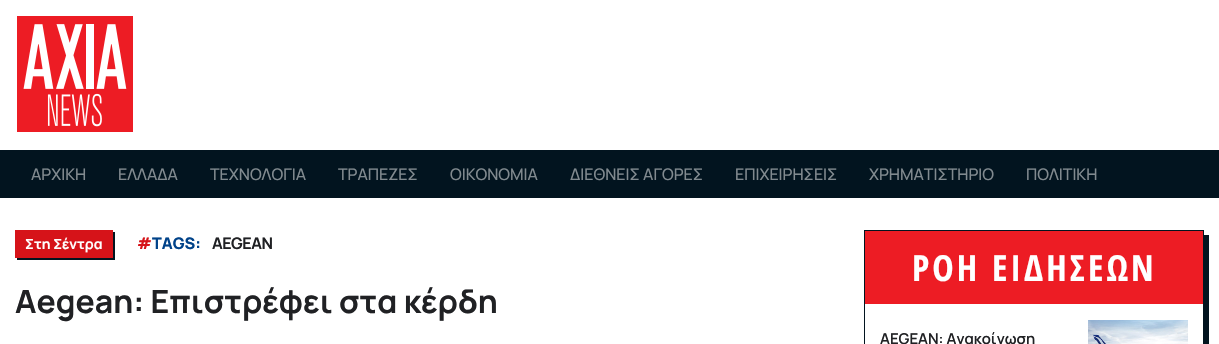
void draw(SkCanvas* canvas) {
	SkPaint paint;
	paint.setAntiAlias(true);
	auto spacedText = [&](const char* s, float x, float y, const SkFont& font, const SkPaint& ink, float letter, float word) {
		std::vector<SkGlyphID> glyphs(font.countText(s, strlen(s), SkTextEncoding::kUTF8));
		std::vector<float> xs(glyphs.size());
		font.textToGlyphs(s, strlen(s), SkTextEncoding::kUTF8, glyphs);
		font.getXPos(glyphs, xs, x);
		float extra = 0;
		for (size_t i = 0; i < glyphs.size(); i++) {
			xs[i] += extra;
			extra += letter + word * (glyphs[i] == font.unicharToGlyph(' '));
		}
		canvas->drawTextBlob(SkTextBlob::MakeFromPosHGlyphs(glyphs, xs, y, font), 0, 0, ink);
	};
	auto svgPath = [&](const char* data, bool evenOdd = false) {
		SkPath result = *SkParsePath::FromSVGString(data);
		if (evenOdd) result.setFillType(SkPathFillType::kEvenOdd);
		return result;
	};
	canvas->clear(0xffffffff);
	canvas->drawImageRect(SkImages::DeferredFromEncodedData(SkData::MakeFromFileName("img1.png")), SkRect::MakeXYWH(17, 16, 116, 116), SkSamplingOptions());
	paint.setColor(0xff02141f);
	canvas->drawRect(SkRect::MakeXYWH(0, 150, 1219, 48), paint);
	SkFont f1(fontMgr->matchFamilyStyle("Manrope", SkFontStyle(500, SkFontStyle::kNormal_Width, SkFontStyle::kUpright_Slant)), 16);
	f1.setSubpixel(true);
	paint.setColor(0xff818a8f);
	canvas->drawString("ΑΡΧΙΚΗ", 31, 180, f1, paint);
	canvas->drawString("ΕΛΛΑΔΑ", 118, 180, f1, paint);
	canvas->drawString("ΤΕΧΝΟΛΟΓΙΑ", 210, 180, f1, paint);
	canvas->drawString("ΤΡΑΠΕΖΕΣ", 338, 180, f1, paint);
	canvas->drawString("ΟΙΚΟΝΟΜΙΑ", 450, 180, f1, paint);
	canvas->drawString("ΔΙΕΘΝΕΙΣ ΑΓΟΡΕΣ", 570, 180, f1, paint);
	canvas->drawString("ΕΠΙΧΕΙΡΗΣΕΙΣ", 735, 180, f1, paint);
	canvas->drawString("ΧΡΗΜΑΤΙΣΤΗΡΙΟ", 869, 180, f1, paint);
	canvas->drawString("ΠΟΛΙΤΙΚΗ", 1026, 180, f1, paint);
	paint.setColor(0xff02141f);
	canvas->drawPath(svgPath("M17 258V260H115V232H113V258Z"), paint);
	paint.setColor(0xffd61319);
	canvas->drawRect(SkRect::MakeXYWH(15, 230, 98, 28), paint);
	SkFont f2(fontMgr->matchFamilyStyle("Manrope", SkFontStyle::Bold()), 14);
	f2.setSubpixel(true);
	paint.setColor(0xffffffff);
	canvas->drawString("Στη Σέντρα", 25, 249, f2, paint);
	SkFont f3(fontMgr->matchFamilyStyle("Manrope", SkFontStyle(800, SkFontStyle::kNormal_Width, SkFontStyle::kUpright_Slant)), 16);
	f3.setSubpixel(true);
	paint.setColor(0xffd61319);
	canvas->drawString("#", 137, 249, f3, paint);
	paint.setColor(0xff004289);
	canvas->drawString("TAGS:", 152, 249, f3, paint);
	SkFont f4(fontMgr->matchFamilyStyle("Manrope", SkFontStyle::Bold()), 16);
	f4.setSubpixel(true);
	paint.setColor(0xff202124);
	spacedText("AEGEAN", 212, 249, f4, paint, -0.5, 0);
	SkFont f5(fontMgr->matchFamilyStyle("Manrope", SkFontStyle::Bold()), 32);
	f5.setSubpixel(true);
	canvas->drawString("Aegean: Επιστρέφει στα κέρδη", 15, 313, f5, paint);
	paint.setColor(0xff02141f);
	canvas->drawPath(svgPath("M869 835V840H1209V235H1204V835Z"), paint);
	paint.setStroke(true);
	paint.setStrokeWidth(1);
	canvas->drawRect(SkRect::MakeXYWH(864.5, 230.5, 339, 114), paint);
	paint.setStroke(false);
	paint.setColor(0xffed1c24);
	canvas->drawRect(SkRect::MakeXYWH(865, 231, 338, 73), paint);
	SkFont f6(fontMgr->matchFamilyStyle("Open Sans Condensed", SkFontStyle::Bold()), 36);
	f6.setSubpixel(true);
	paint.setColor(0xffffffff);
	spacedText("ΡΟΗ ΕΙΔΗΣΕΩΝ", 912, 281, f6, paint, 3, 0);
	SkFont f7(fontMgr->matchFamilyStyle("Manrope", SkFontStyle(600, SkFontStyle::kNormal_Width, SkFontStyle::kUpright_Slant)), 15);
	f7.setSubpixel(true);
	paint.setColor(0xff202124);
	canvas->drawString("AEGEAN: Ανακοίνωση", 880, 344, f7, paint);
	canvas->drawImageRect(SkImages::DeferredFromEncodedData(SkData::MakeFromFileName("img2.png")), SkRect::MakeXYWH(1088, 320, 100, 24), SkSamplingOptions());
}
